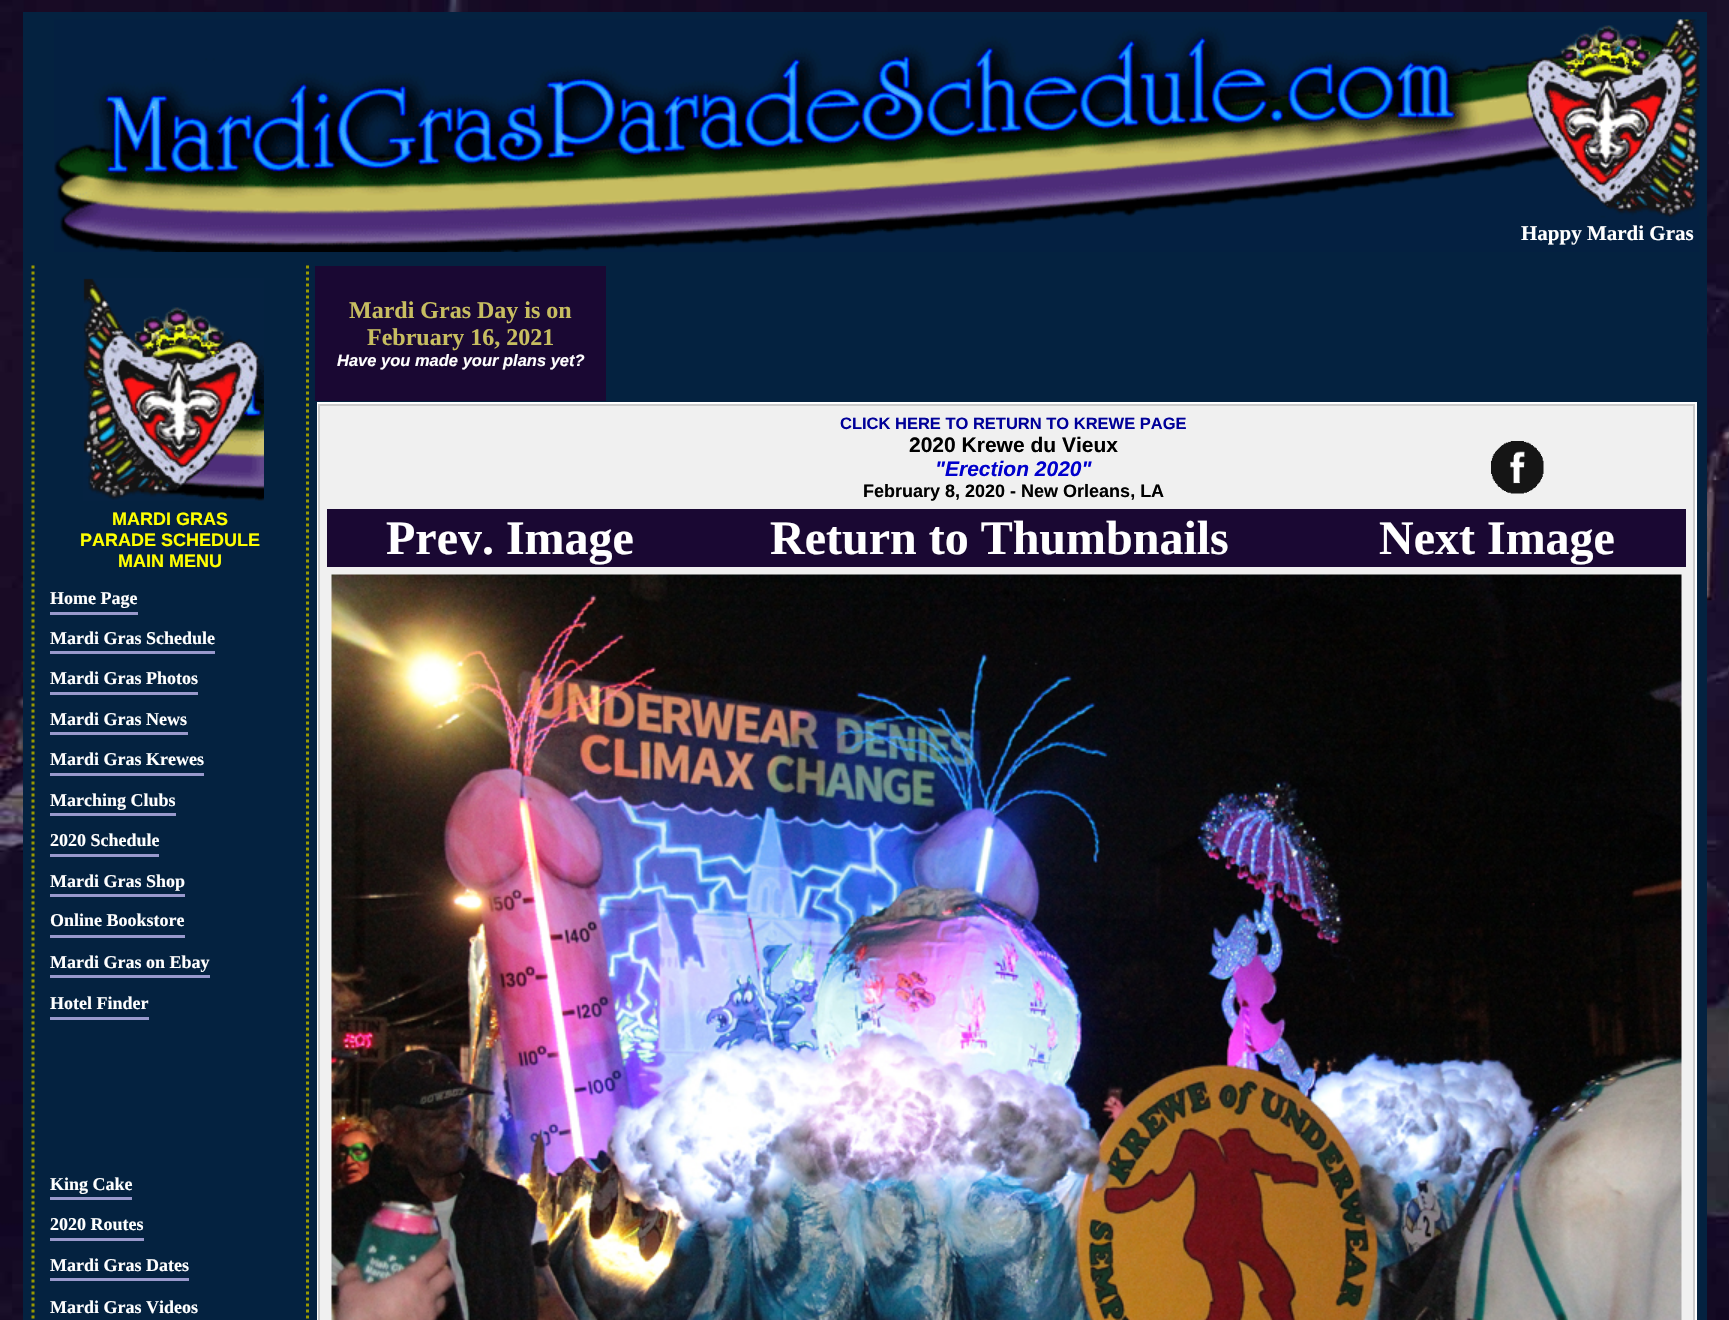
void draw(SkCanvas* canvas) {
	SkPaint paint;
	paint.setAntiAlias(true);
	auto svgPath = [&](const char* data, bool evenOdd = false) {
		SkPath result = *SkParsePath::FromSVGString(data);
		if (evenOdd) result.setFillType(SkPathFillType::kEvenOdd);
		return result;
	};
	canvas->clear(0xffffffff);
	canvas->drawImageRect(SkImages::DeferredFromEncodedData(SkData::MakeFromFileName("img1.png")), SkRect::MakeXYWH(0, 0, 1729, 1320), SkSamplingOptions());
	paint.setColor(0xff042240);
	canvas->drawRect(SkRect::MakeXYWH(23, 12, 1684, 1308), paint);
	canvas->drawImageRect(SkImages::DeferredFromEncodedData(SkData::MakeFromFileName("img2.png")), SkRect::MakeXYWH(54, 19, 1646, 233), SkSamplingOptions());
	SkFont f1(fontMgr->matchFamilyStyle("Liberation Serif", SkFontStyle::Bold()), 21);
	f1.setSubpixel(true);
	paint.setColor(0xffffffff);
	canvas->drawString("Happy Mardi Gras", 1521, 240, f1, paint);
	paint.setColor(0xff1a0833);
	canvas->drawRect(SkRect::MakeXYWH(315, 266, 291, 135), paint);
	SkFont f2(fontMgr->matchFamilyStyle("Liberation Serif", SkFontStyle::Bold()), 24);
	f2.setSubpixel(true);
	paint.setColor(0xffc7bd60);
	canvas->drawString("Mardi Gras Day is on", 349, 318, f2, paint);
	canvas->drawString("February 16, 2021", 367, 345, f2, paint);
	SkFont f3(fontMgr->matchFamilyStyle("Liberation Sans", SkFontStyle::BoldItalic()), 16.5);
	f3.setSubpixel(true);
	paint.setColor(0xffffffff);
	canvas->drawString("Have you made your plans yet?", 337, 366, f3, paint);
	canvas->drawRect(SkRect::MakeXYWH(317, 402, 1380, 918), paint);
	paint.setColor(0xfff0f0f0);
	canvas->drawRect(SkRect::MakeXYWH(319, 405, 1375, 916), paint);
	paint.setStroke(true);
	paint.setStrokeWidth(2);
	paint.setColor(0xffcccccc);
	canvas->drawRect(SkRect::MakeXYWH(319, 405, 1375, 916), paint);
	SkFont f4(fontMgr->matchFamilyStyle("Liberation Sans", SkFontStyle::Bold()), 16.5);
	f4.setSubpixel(true);
	paint.setStroke(false);
	paint.setColor(0xff000099);
	canvas->drawString("CLICK HERE TO RETURN TO KREWE PAGE", 840, 429, f4, paint);
	SkFont f5(fontMgr->matchFamilyStyle("Liberation Sans", SkFontStyle::Bold()), 21);
	f5.setSubpixel(true);
	paint.setColor(0xff000000);
	canvas->drawString("2020 Krewe du Vieux", 909, 452, f5, paint);
	SkFont f6(fontMgr->matchFamilyStyle("Liberation Sans", SkFontStyle::BoldItalic()), 21);
	f6.setSubpixel(true);
	paint.setColor(0xff0000cc);
	canvas->drawString("\"Erection 2020\"", 935, 476, f6, paint);
	SkFont f7(fontMgr->matchFamilyStyle("Liberation Sans", SkFontStyle::Bold()), 18);
	f7.setSubpixel(true);
	paint.setColor(0xff000000);
	canvas->drawString("February 8, 2020 - New Orleans, LA", 863, 497, f7, paint);
	canvas->drawImageRect(SkImages::DeferredFromEncodedData(SkData::MakeFromFileName("img3.png")), SkRect::MakeXYWH(1491, 441, 53, 53), SkSamplingOptions());
	paint.setColor(0xff1a0833);
	canvas->drawRect(SkRect::MakeXYWH(327, 509, 1359, 58), paint);
	SkFont f8(fontMgr->matchFamilyStyle("Liberation Serif", SkFontStyle::Bold()), 48);
	f8.setSubpixel(true);
	paint.setColor(0xffffffff);
	canvas->drawString("Prev. Image", 386, 554, f8, paint);
	canvas->drawString("Return to Thumbnails", 770, 554, f8, paint);
	canvas->drawString("Next Image", 1379, 554, f8, paint);
	canvas->drawImageRect(SkImages::DeferredFromEncodedData(SkData::MakeFromFileName("img4.png")), SkRect::MakeXYWH(331, 574, 1351, 746), SkSamplingOptions());
	paint.setStroke(true);
	paint.setStrokeWidth(3);
	paint.setColor(0xff999900);
	paint.setPathEffect(SkDashPathEffect::Make({{3, 3}}, 0));
	canvas->drawPath(svgPath("M307.5 265.5V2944.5"), paint);
	paint.setPathEffect(nullptr);
	paint.setPathEffect(SkDashPathEffect::Make({{3, 3}}, 0));
	canvas->drawPath(svgPath("M33 265.5V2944.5"), paint);
	paint.setPathEffect(nullptr);
	canvas->drawImageRect(SkImages::DeferredFromEncodedData(SkData::MakeFromFileName("img5.png")), SkRect::MakeXYWH(83, 278, 181, 223), SkSamplingOptions());
	paint.setStroke(false);
	paint.setColor(0xffffff00);
	canvas->drawString("MARDI GRAS", 112, 525, f7, paint);
	canvas->drawString("PARADE SCHEDULE", 80, 546, f7, paint);
	canvas->drawString("MAIN MENU", 118, 567, f7, paint);
	SkFont f9(fontMgr->matchFamilyStyle("Liberation Serif", SkFontStyle::Bold()), 18);
	f9.setSubpixel(true);
	paint.setColor(0xffffffff);
	canvas->drawString("Home Page", 50, 604, f9, paint);
	paint.setColor(0xff9999cc);
	canvas->drawRect(SkRect::MakeXYWH(50, 612, 88, 3), paint);
	paint.setColor(0xffffffff);
	canvas->drawString("Mardi Gras Schedule", 50, 644, f9, paint);
	paint.setColor(0xff9999cc);
	canvas->drawRect(SkRect::MakeXYWH(50, 651, 165, 3), paint);
	paint.setColor(0xffffffff);
	canvas->drawString("Mardi Gras Photos", 50, 684, f9, paint);
	paint.setColor(0xff9999cc);
	canvas->drawRect(SkRect::MakeXYWH(50, 692, 148, 3), paint);
	paint.setColor(0xffffffff);
	canvas->drawString("Mardi Gras News", 50, 725, f9, paint);
	paint.setColor(0xff9999cc);
	canvas->drawRect(SkRect::MakeXYWH(50, 732, 138, 3), paint);
	paint.setColor(0xffffffff);
	canvas->drawString("Mardi Gras Krewes", 50, 765, f9, paint);
	paint.setColor(0xff9999cc);
	canvas->drawRect(SkRect::MakeXYWH(50, 773, 154, 3), paint);
	paint.setColor(0xffffffff);
	canvas->drawString("Marching Clubs", 50, 806, f9, paint);
	paint.setColor(0xff9999cc);
	canvas->drawRect(SkRect::MakeXYWH(50, 813, 126, 3), paint);
	paint.setColor(0xffffffff);
	canvas->drawString("2020 Schedule", 50, 846, f9, paint);
	paint.setColor(0xff9999cc);
	canvas->drawRect(SkRect::MakeXYWH(50, 854, 109, 3), paint);
	paint.setColor(0xffffffff);
	canvas->drawString("Mardi Gras Shop", 50, 887, f9, paint);
	paint.setColor(0xff9999cc);
	canvas->drawRect(SkRect::MakeXYWH(50, 894, 135, 3), paint);
	paint.setColor(0xffffffff);
	canvas->drawString("Online Bookstore", 50, 926, f9, paint);
	paint.setColor(0xff9999cc);
	canvas->drawRect(SkRect::MakeXYWH(50, 935, 135, 3), paint);
	paint.setColor(0xffffffff);
	canvas->drawString("Mardi Gras on Ebay", 50, 968, f9, paint);
	paint.setColor(0xff9999cc);
	canvas->drawRect(SkRect::MakeXYWH(50, 975, 160, 3), paint);
	paint.setColor(0xffffffff);
	canvas->drawString("Hotel Finder", 50, 1009, f9, paint);
	paint.setColor(0xff9999cc);
	canvas->drawRect(SkRect::MakeXYWH(50, 1017, 99, 3), paint);
	paint.setColor(0xffffffff);
	canvas->drawString("King Cake", 50, 1190, f9, paint);
	paint.setColor(0xff9999cc);
	canvas->drawRect(SkRect::MakeXYWH(50, 1197, 82, 3), paint);
	paint.setColor(0xffffffff);
	canvas->drawString("2020 Routes", 50, 1230, f9, paint);
	paint.setColor(0xff9999cc);
	canvas->drawRect(SkRect::MakeXYWH(50, 1238, 94, 3), paint);
	paint.setColor(0xffffffff);
	canvas->drawString("Mardi Gras Dates", 50, 1271, f9, paint);
	paint.setColor(0xff9999cc);
	canvas->drawRect(SkRect::MakeXYWH(50, 1278, 139, 3), paint);
	paint.setColor(0xffffffff);
	canvas->drawString("Mardi Gras Videos", 50, 1313, f9, paint);
}
